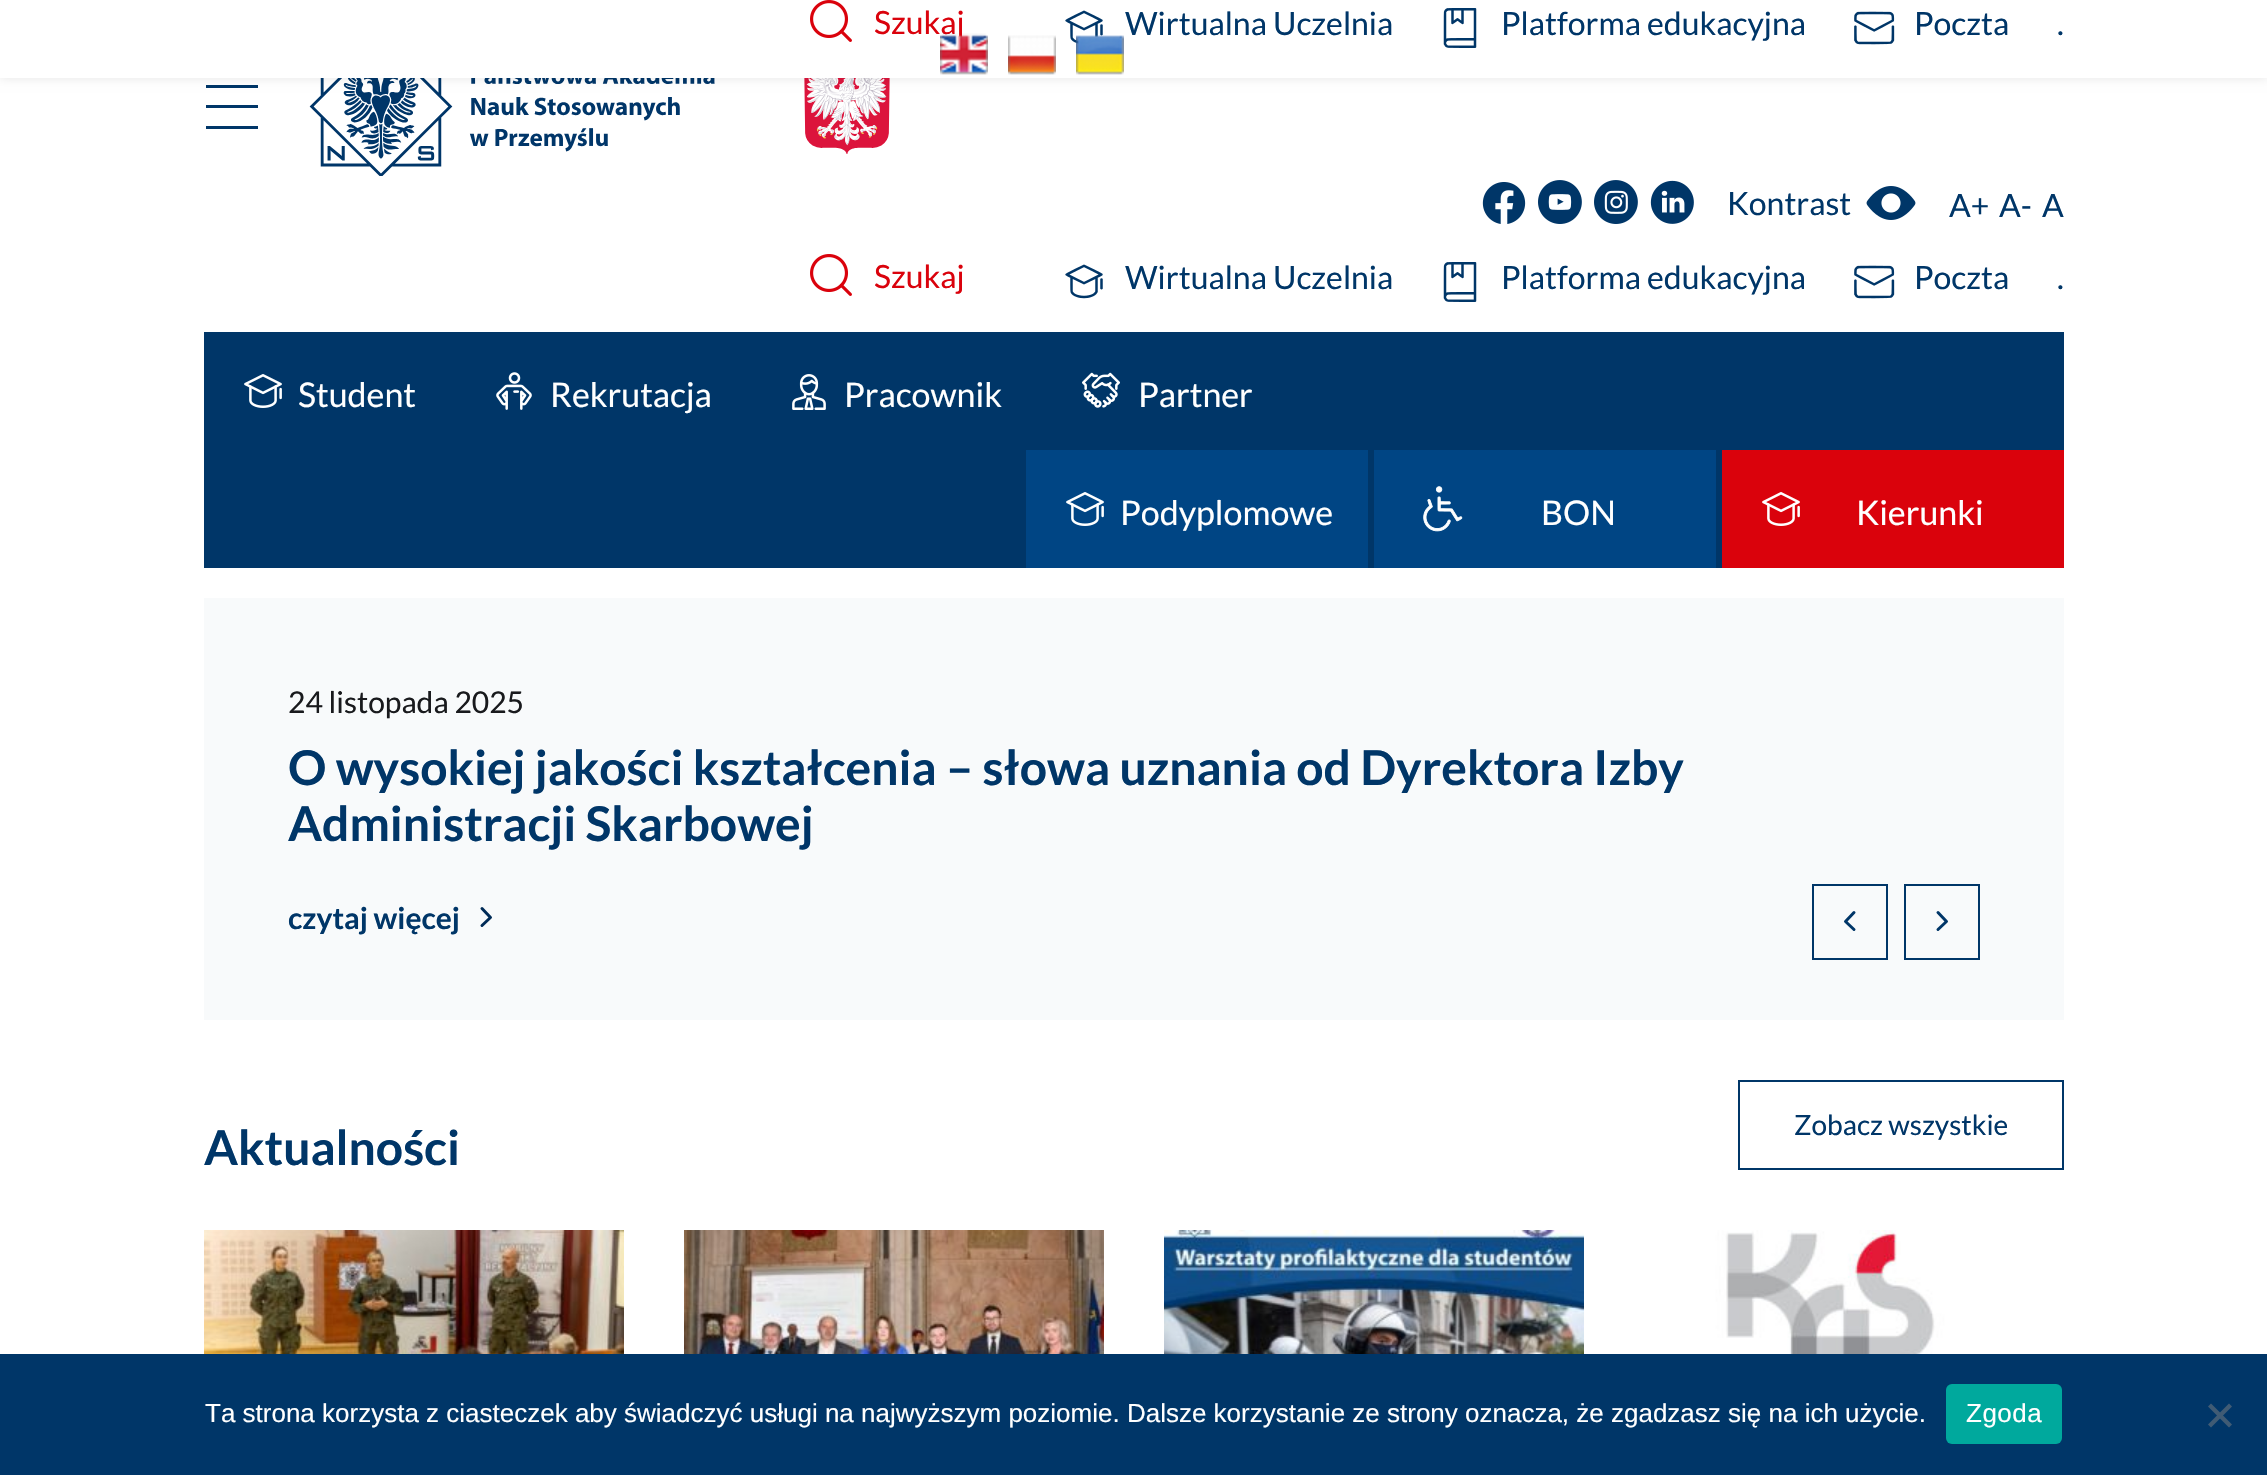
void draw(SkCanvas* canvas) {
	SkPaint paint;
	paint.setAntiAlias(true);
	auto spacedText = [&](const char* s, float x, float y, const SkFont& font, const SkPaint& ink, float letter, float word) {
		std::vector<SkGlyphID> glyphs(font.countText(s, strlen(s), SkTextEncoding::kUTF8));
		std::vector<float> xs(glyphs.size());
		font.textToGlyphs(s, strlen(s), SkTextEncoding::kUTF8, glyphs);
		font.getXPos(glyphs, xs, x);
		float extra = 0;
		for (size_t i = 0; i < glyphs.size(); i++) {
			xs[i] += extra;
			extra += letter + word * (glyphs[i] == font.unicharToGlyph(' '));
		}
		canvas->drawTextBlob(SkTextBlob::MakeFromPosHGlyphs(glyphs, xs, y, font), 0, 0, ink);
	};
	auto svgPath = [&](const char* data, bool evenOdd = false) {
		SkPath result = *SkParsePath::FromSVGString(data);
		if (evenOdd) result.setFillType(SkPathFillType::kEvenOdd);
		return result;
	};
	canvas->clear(0xffffffff);
	paint.setColor(0xff003668);
	canvas->drawRect(SkRect::MakeXYWH(206, 85, 52, 3), paint);
	canvas->drawImageRect(SkImages::DeferredFromEncodedData(SkData::MakeFromFileName("img5.png")), SkRect::MakeXYWH(309, 78, 406, 98), SkSamplingOptions());
	canvas->drawImageRect(SkImages::DeferredFromEncodedData(SkData::MakeFromFileName("img6.png")), SkRect::MakeXYWH(804, 78, 86, 76), SkSamplingOptions());
	paint.setColor(0x1a000000);
	paint.setMaskFilter(SkMaskFilter::MakeBlur(kNormal_SkBlurStyle, 5));
	canvas->drawRect(SkRect::MakeXYWH(0, -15, 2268, 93), paint);
	paint.setMaskFilter(nullptr);
	paint.setColor(0xffffffff);
	canvas->drawRect(SkRect::MakeXYWH(0, 0, 2267, 78), paint);
	canvas->drawImageRect(SkImages::DeferredFromEncodedData(SkData::MakeFromFileName("img1.png")), SkRect::MakeXYWH(810, 0, 42, 42), SkSamplingOptions());
	SkFont f1(fontMgr->matchFamilyStyle("Lato", SkFontStyle::Normal()), 32);
	f1.setSubpixel(true);
	paint.setColor(0xffda020c);
	canvas->drawString("Szukaj", 874, 34, f1, paint);
	canvas->drawImageRect(SkImages::DeferredFromEncodedData(SkData::MakeFromFileName("img2.png")), SkRect::MakeXYWH(1065, 10, 38, 35), SkSamplingOptions());
	paint.setColor(0xff003668);
	canvas->drawString("Wirtualna Uczelnia", 1125, 35, f1, paint);
	canvas->drawImageRect(SkImages::DeferredFromEncodedData(SkData::MakeFromFileName("img3.png")), SkRect::MakeXYWH(1443, 8, 34, 40), SkSamplingOptions());
	canvas->drawString("Platforma edukacyjna", 1501, 35, f1, paint);
	canvas->drawImageRect(SkImages::DeferredFromEncodedData(SkData::MakeFromFileName("img4.png")), SkRect::MakeXYWH(1854, 11, 41, 34), SkSamplingOptions());
	canvas->drawString("Poczta", 1914, 35, f1, paint);
	canvas->drawString(".", 2057, 35, f1, paint);
	canvas->drawRect(SkRect::MakeXYWH(206, 105, 52, 3), paint);
	canvas->drawRect(SkRect::MakeXYWH(206, 126, 52, 3), paint);
	canvas->drawImageRect(SkImages::DeferredFromEncodedData(SkData::MakeFromFileName("img7.png")), SkRect::MakeXYWH(1482, 182, 44, 42), SkSamplingOptions());
	canvas->drawImageRect(SkImages::DeferredFromEncodedData(SkData::MakeFromFileName("img8.png")), SkRect::MakeXYWH(1538, 180, 44, 44), SkSamplingOptions());
	canvas->drawImageRect(SkImages::DeferredFromEncodedData(SkData::MakeFromFileName("img9.png")), SkRect::MakeXYWH(1594, 180, 44, 44), SkSamplingOptions());
	canvas->drawImageRect(SkImages::DeferredFromEncodedData(SkData::MakeFromFileName("img10.png")), SkRect::MakeXYWH(1650, 180, 44, 44), SkSamplingOptions());
	canvas->drawImageRect(SkImages::DeferredFromEncodedData(SkData::MakeFromFileName("img11.png")), SkRect::MakeXYWH(1866, 186, 50, 34), SkSamplingOptions());
	canvas->drawString("Kontrast", 1727, 215, f1, paint);
	canvas->drawString("A+", 1949, 217, f1, paint);
	canvas->drawString("A-", 1999, 217, f1, paint);
	canvas->drawString("A", 2042, 217, f1, paint);
	canvas->drawImageRect(SkImages::DeferredFromEncodedData(SkData::MakeFromFileName("img1.png")), SkRect::MakeXYWH(810, 254, 42, 42), SkSamplingOptions());
	paint.setColor(0xffda020c);
	canvas->drawString("Szukaj", 874, 288, f1, paint);
	canvas->drawImageRect(SkImages::DeferredFromEncodedData(SkData::MakeFromFileName("img2.png")), SkRect::MakeXYWH(1065, 264, 38, 35), SkSamplingOptions());
	paint.setColor(0xff003668);
	canvas->drawString("Wirtualna Uczelnia", 1125, 289, f1, paint);
	canvas->drawImageRect(SkImages::DeferredFromEncodedData(SkData::MakeFromFileName("img3.png")), SkRect::MakeXYWH(1443, 262, 34, 40), SkSamplingOptions());
	canvas->drawString("Platforma edukacyjna", 1501, 289, f1, paint);
	canvas->drawImageRect(SkImages::DeferredFromEncodedData(SkData::MakeFromFileName("img4.png")), SkRect::MakeXYWH(1854, 265, 41, 34), SkSamplingOptions());
	canvas->drawString("Poczta", 1914, 289, f1, paint);
	canvas->drawString(".", 2057, 289, f1, paint);
	canvas->drawRect(SkRect::MakeXYWH(204, 332, 1860, 236), paint);
	canvas->drawImageRect(SkImages::DeferredFromEncodedData(SkData::MakeFromFileName("img12.png")), SkRect::MakeXYWH(244, 374, 38, 34), SkSamplingOptions());
	SkFont f2(fontMgr->matchFamilyStyle("Lato", SkFontStyle::Normal()), 34);
	f2.setSubpixel(true);
	paint.setColor(0xffffffff);
	canvas->drawString("Student", 298, 407, f2, paint);
	canvas->drawImageRect(SkImages::DeferredFromEncodedData(SkData::MakeFromFileName("img13.png")), SkRect::MakeXYWH(496, 372, 36, 38), SkSamplingOptions());
	canvas->drawString("Rekrutacja", 550, 407, f2, paint);
	canvas->drawImageRect(SkImages::DeferredFromEncodedData(SkData::MakeFromFileName("img14.png")), SkRect::MakeXYWH(792, 374, 34, 36), SkSamplingOptions());
	canvas->drawString("Pracownik", 844, 407, f2, paint);
	canvas->drawImageRect(SkImages::DeferredFromEncodedData(SkData::MakeFromFileName("img15.png")), SkRect::MakeXYWH(1082, 372, 38, 36), SkSamplingOptions());
	canvas->drawString("Partner", 1138, 407, f2, paint);
	paint.setColor(0xff004584);
	canvas->drawRect(SkRect::MakeXYWH(1026, 450, 342, 118), paint);
	canvas->drawImageRect(SkImages::DeferredFromEncodedData(SkData::MakeFromFileName("img16.png")), SkRect::MakeXYWH(1066, 492, 38, 34), SkSamplingOptions());
	paint.setColor(0xffffffff);
	canvas->drawString("Podyplomowe", 1120, 525, f2, paint);
	paint.setColor(0xff004584);
	canvas->drawRect(SkRect::MakeXYWH(1374, 450, 342, 118), paint);
	canvas->drawImageRect(SkImages::DeferredFromEncodedData(SkData::MakeFromFileName("img17.png")), SkRect::MakeXYWH(1423, 486, 40, 46), SkSamplingOptions());
	paint.setColor(0xffffffff);
	canvas->drawString("BON", 1541, 525, f2, paint);
	paint.setColor(0xffda020c);
	canvas->drawRect(SkRect::MakeXYWH(1722, 450, 342, 118), paint);
	canvas->drawImageRect(SkImages::DeferredFromEncodedData(SkData::MakeFromFileName("img18.png")), SkRect::MakeXYWH(1762, 492, 38, 34), SkSamplingOptions());
	paint.setColor(0xffffffff);
	canvas->drawString("Kierunki", 1856, 525, f2, paint);
	paint.setColor(0xfff8fafb);
	canvas->drawRect(SkRect::MakeXYWH(204, 598, 1860, 422), paint);
	SkFont f3(fontMgr->matchFamilyStyle("Lato", SkFontStyle::Normal()), 30);
	f3.setSubpixel(true);
	paint.setColor(0xff191a1d);
	canvas->drawString("24 listopada 2025", 288, 713, f3, paint);
	SkFont f4(fontMgr->matchFamilyStyle("Lato", SkFontStyle::Bold()), 48);
	f4.setSubpixel(true);
	paint.setColor(0xff003668);
	canvas->drawString("O wysokiej jakości kształcenia – słowa uznania od Dyrektora Izby", 288, 785, f4, paint);
	canvas->drawString("Administracji Skarbowej", 288, 841, f4, paint);
	paint.setStroke(true);
	paint.setStrokeWidth(3);
	paint.setStrokeCap(SkPaint::kRound_Cap);
	paint.setStrokeJoin(SkPaint::kRound_Join);
	paint.setColor(0xff002b57);
	canvas->drawPath(svgPath("M482 908.5L490.5 917.5L482 925.5"), paint);
	SkFont f5(fontMgr->matchFamilyStyle("Lato", SkFontStyle::Bold()), 30);
	f5.setSubpixel(true);
	paint.setStroke(false);
	paint.setColor(0xff003668);
	canvas->drawString("czytaj więcej", 288, 929, f5, paint);
	paint.setStroke(true);
	canvas->drawPath(svgPath("M1854 912.5L1845.5 921.5L1854 929.5"), paint);
	paint.setStrokeWidth(2);
	paint.setStrokeCap(SkPaint::kButt_Cap);
	paint.setStrokeJoin(SkPaint::kMiter_Join);
	canvas->drawRect(SkRect::MakeXYWH(1813, 885, 74, 74), paint);
	paint.setStrokeWidth(3);
	paint.setStrokeCap(SkPaint::kRound_Cap);
	paint.setStrokeJoin(SkPaint::kRound_Join);
	canvas->drawPath(svgPath("M1938 912.5L1946.5 921.5L1938 929.5"), paint);
	paint.setStrokeWidth(2);
	paint.setStrokeCap(SkPaint::kButt_Cap);
	paint.setStrokeJoin(SkPaint::kMiter_Join);
	canvas->drawRect(SkRect::MakeXYWH(1905, 885, 74, 74), paint);
	paint.setStroke(false);
	canvas->drawString("Aktualności", 204, 1165, f4, paint);
	paint.setStroke(true);
	canvas->drawRect(SkRect::MakeXYWH(1739, 1081, 324, 88), paint);
	SkFont f6(fontMgr->matchFamilyStyle("Lato", SkFontStyle::Normal()), 28);
	f6.setSubpixel(true);
	paint.setStroke(false);
	canvas->drawString("Zobacz wszystkie", 1794, 1135, f6, paint);
	canvas->drawImageRect(SkImages::DeferredFromEncodedData(SkData::MakeFromFileName("img19.png")), SkRect::MakeXYWH(204, 1230, 420, 124), SkSamplingOptions());
	canvas->drawImageRect(SkImages::DeferredFromEncodedData(SkData::MakeFromFileName("img20.png")), SkRect::MakeXYWH(684, 1230, 420, 124), SkSamplingOptions());
	canvas->drawImageRect(SkImages::DeferredFromEncodedData(SkData::MakeFromFileName("img21.png")), SkRect::MakeXYWH(1164, 1230, 420, 124), SkSamplingOptions());
	canvas->drawImageRect(SkImages::DeferredFromEncodedData(SkData::MakeFromFileName("img22.png")), SkRect::MakeXYWH(1644, 1230, 420, 124), SkSamplingOptions());
	canvas->drawImageRect(SkImages::DeferredFromEncodedData(SkData::MakeFromFileName("img23.png")), SkRect::MakeXYWH(940, 33, 48, 42), SkSamplingOptions());
	canvas->drawImageRect(SkImages::DeferredFromEncodedData(SkData::MakeFromFileName("img24.png")), SkRect::MakeXYWH(1008, 35, 48, 40), SkSamplingOptions());
	canvas->drawImageRect(SkImages::DeferredFromEncodedData(SkData::MakeFromFileName("img25.png")), SkRect::MakeXYWH(1076, 35, 48, 40), SkSamplingOptions());
	canvas->drawRect(SkRect::MakeXYWH(0, 1354, 2267, 121), paint);
	SkFont f7(fontMgr->matchFamilyStyle("Liberation Sans", SkFontStyle::Normal()), 26);
	f7.setSubpixel(true);
	paint.setColor(0xffffffff);
	canvas->drawString("Ta strona korzysta z ciasteczek aby świadczyć usługi na najwyższym poziomie. Dalsze korzystanie ze strony oznacza, że zgadzasz się na ich użycie.", 205, 1422, f7, paint);
	paint.setColor(0xff00a99d);
	canvas->drawRoundRect(SkRect::MakeXYWH(1946, 1384, 116, 60), 6, 6, paint);
	paint.setColor(0xffffffff);
	spacedText("Zgoda", 1966, 1422, f7, paint, 0.5, 0);
	paint.setColor(0xff405b74);
	canvas->drawPath(svgPath("M2229 1403.5L2232 1406.5L2211 1427.5L2208 1424.5Z"), paint);
	canvas->drawPath(svgPath("M2208 1406.5L2211 1403.5L2232 1424.5L2229 1427.5Z"), paint);
}
